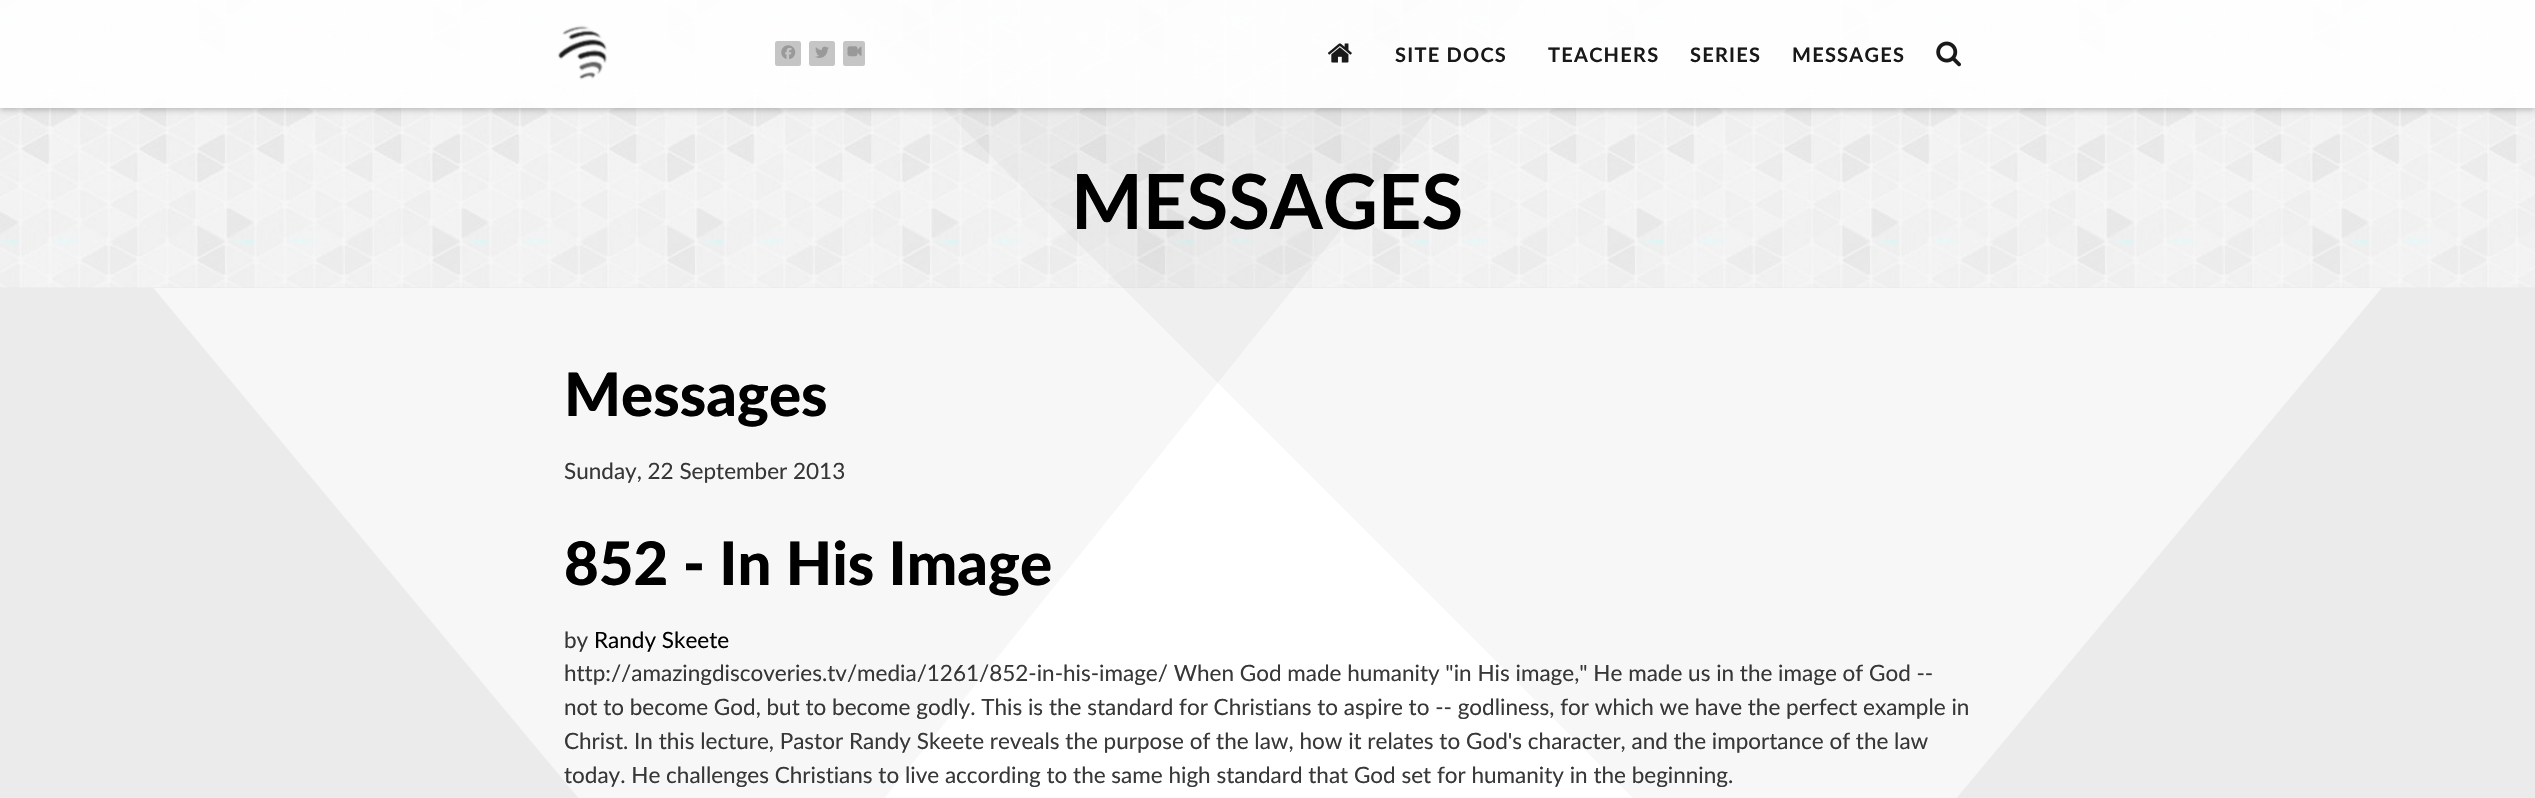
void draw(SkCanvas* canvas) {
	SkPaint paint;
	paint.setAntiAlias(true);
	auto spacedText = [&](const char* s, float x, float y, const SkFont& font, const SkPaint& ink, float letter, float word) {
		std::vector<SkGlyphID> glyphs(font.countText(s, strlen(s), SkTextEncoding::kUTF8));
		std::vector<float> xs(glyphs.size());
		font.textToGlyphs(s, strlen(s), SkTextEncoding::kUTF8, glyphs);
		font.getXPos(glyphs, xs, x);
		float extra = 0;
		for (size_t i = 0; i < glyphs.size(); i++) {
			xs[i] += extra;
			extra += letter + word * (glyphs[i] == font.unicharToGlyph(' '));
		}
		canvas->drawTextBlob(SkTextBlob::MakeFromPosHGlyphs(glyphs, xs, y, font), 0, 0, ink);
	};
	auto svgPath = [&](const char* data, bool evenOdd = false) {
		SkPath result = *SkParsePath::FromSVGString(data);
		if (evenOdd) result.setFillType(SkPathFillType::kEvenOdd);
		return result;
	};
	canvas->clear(0xffffffff);
	SkFont f1(fontMgr->matchFamilyStyle("Lato", SkFontStyle(900, SkFontStyle::kNormal_Width, SkFontStyle::kUpright_Slant)), 60);
	f1.setSubpixel(true);
	paint.setColor(0xff000000);
	canvas->drawString("Messages", 564, 416, f1, paint);
	SkFont f2(fontMgr->matchFamilyStyle("Lato", SkFontStyle::Normal()), 22.5);
	f2.setSubpixel(true);
	paint.setColor(0xff383838);
	canvas->drawString("Sunday, 22 September 2013", 564, 479, f2, paint);
	paint.setColor(0xff000000);
	canvas->drawString("852 - In His Image", 564, 585, f1, paint);
	paint.setColor(0xff383838);
	canvas->drawString("by", 564, 648, f2, paint);
	canvas->drawString("http://amazingdiscoveries.tv/media/1261/852-in-his-image/ When God made humanity \"in His image,\" He made us in the image of God --", 564, 681, f2, paint);
	canvas->drawString("not to become God, but to become godly. This is the standard for Christians to aspire to -- godliness, for which we have the perfect example in", 564, 715, f2, paint);
	canvas->drawString("Christ. In this lecture, Pastor Randy Skeete reveals the purpose of the law, how it relates to God's character, and the importance of the law", 564, 749, f2, paint);
	canvas->drawString("today. He challenges Christians to live according to the same high standard that God set for humanity in the beginning.", 564, 783, f2, paint);
	paint.setColor(0xfff3f3f3);
	canvas->drawPath(svgPath("M0 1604V104L1250 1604Z"), paint);
	canvas->drawPath(svgPath("M2535 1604H1285L2535 104Z"), paint);
	paint.setColor(0xfff0f0f0);
	canvas->drawRect(SkRect::MakeXYWH(0, 287, 2535, 1), paint);
	canvas->drawImageRect(SkImages::DeferredFromEncodedData(SkData::MakeFromFileName("img7.png")), SkRect::MakeXYWH(0, 0, 2535, 288), SkSamplingOptions());
	paint.setColor(0x08000000);
	canvas->drawPath(svgPath("M0 0H1525L0 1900Z"), paint);
	canvas->drawPath(svgPath("M835 0H2535V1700Z"), paint);
	canvas->save();
	canvas->clipPath(svgPath("M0 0H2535V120H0ZM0 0H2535V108H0Z", true), true);
	paint.setColor(0x3b000000);
	paint.setMaskFilter(SkMaskFilter::MakeBlur(kNormal_SkBlurStyle, 3));
	canvas->drawRect(SkRect::MakeXYWH(0, 3, 2535, 107), paint);
	paint.setMaskFilter(nullptr);
	canvas->restore();
	paint.setColor(0xe6ffffff);
	canvas->drawRect(SkRect::MakeXYWH(0, 0, 2535, 108), paint);
	canvas->drawImageRect(SkImages::DeferredFromEncodedData(SkData::MakeFromFileName("img1.png")), SkRect::MakeXYWH(557, 25, 50, 55), SkSamplingOptions());
	paint.setColor(0xffc5c5c5);
	canvas->drawRoundRect(SkRect::MakeXYWH(775, 41, 26, 25), 2.5, 2.5, paint);
	canvas->drawImageRect(SkImages::DeferredFromEncodedData(SkData::MakeFromFileName("img2.png")), SkRect::MakeXYWH(781, 45, 15, 14), SkSamplingOptions());
	canvas->drawRoundRect(SkRect::MakeXYWH(809, 41, 26, 25), 2.5, 2.5, paint);
	canvas->drawImageRect(SkImages::DeferredFromEncodedData(SkData::MakeFromFileName("img3.png")), SkRect::MakeXYWH(815, 46, 14, 12), SkSamplingOptions());
	canvas->drawRoundRect(SkRect::MakeXYWH(843, 41, 22, 25), 2.5, 2.5, paint);
	canvas->drawImageRect(SkImages::DeferredFromEncodedData(SkData::MakeFromFileName("img4.png")), SkRect::MakeXYWH(847, 46, 15, 11), SkSamplingOptions());
	canvas->drawImageRect(SkImages::DeferredFromEncodedData(SkData::MakeFromFileName("img5.png")), SkRect::MakeXYWH(1328, 43, 24, 20), SkSamplingOptions());
	SkFont f3(fontMgr->matchFamilyStyle("Lato", SkFontStyle::Bold()), 20);
	f3.setSubpixel(true);
	paint.setColor(0xff191919);
	spacedText("SITE DOCS", 1395, 62, f3, paint, 1.25, 0);
	spacedText("TEACHERS", 1548, 62, f3, paint, 1.25, 0);
	spacedText("SERIES", 1690, 62, f3, paint, 1.25, 0);
	spacedText("MESSAGES", 1792, 62, f3, paint, 1.25, 0);
	canvas->drawImageRect(SkImages::DeferredFromEncodedData(SkData::MakeFromFileName("img6.png")), SkRect::MakeXYWH(1936, 41, 25, 26), SkSamplingOptions());
	SkFont f4(fontMgr->matchFamilyStyle("Lato", SkFontStyle::Bold()), 76);
	f4.setSubpixel(true);
	paint.setColor(0xff000000);
	canvas->drawString("MESSAGES", 1071, 229, f4, paint);
	canvas->drawString("Randy Skeete", 594, 648, f2, paint);
}
